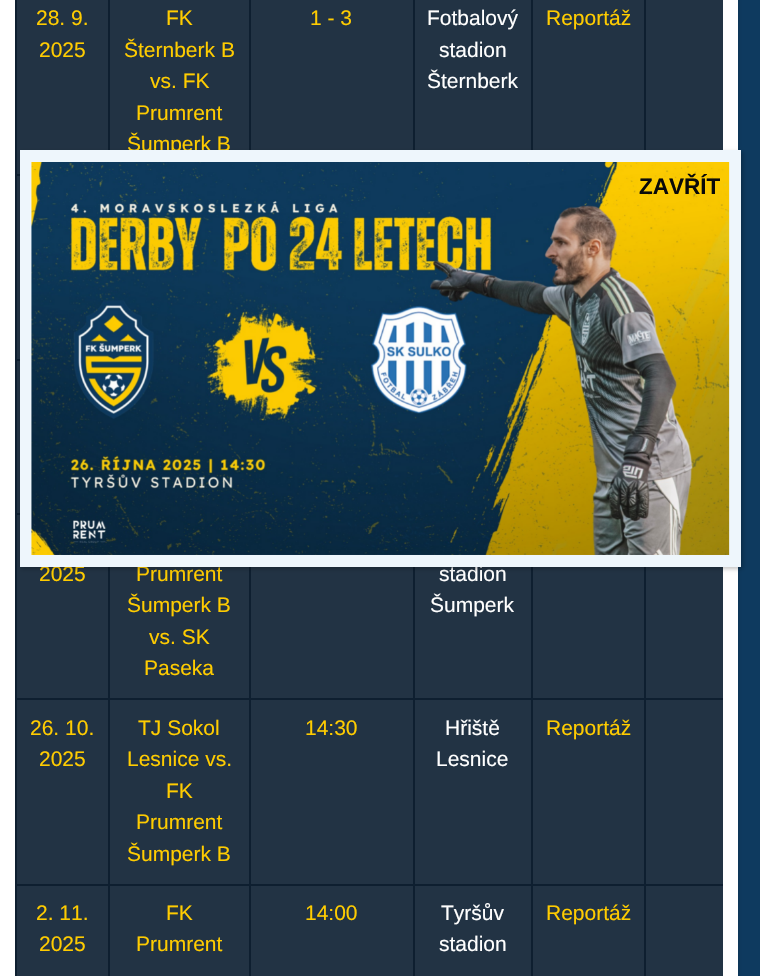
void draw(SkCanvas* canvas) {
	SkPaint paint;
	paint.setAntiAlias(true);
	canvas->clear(0xffffffff);
	canvas->drawImageRect(SkImages::DeferredFromEncodedData(SkData::MakeFromFileName("img1.png")), SkRect::MakeXYWH(738, 0, 22, 976), SkSamplingOptions());
	paint.setColor(0x33000000);
	paint.setMaskFilter(SkMaskFilter::MakeBlur(kNormal_SkBlurStyle, 2));
	canvas->drawRect(SkRect::MakeXYWH(0, -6, 738, 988), paint);
	paint.setMaskFilter(nullptr);
	paint.setColor(0xffffffff);
	canvas->drawRect(SkRect::MakeXYWH(0, 0, 738, 976), paint);
	paint.setColor(0xff223344);
	canvas->drawRect(SkRect::MakeXYWH(17, 0, 706, 976), paint);
	paint.setColor(0xff0e1f30);
	canvas->drawRect(SkRect::MakeXYWH(15, 0, 2, 976), paint);
	SkFont f1(fontMgr->matchFamilyStyle("Liberation Sans", SkFontStyle::Normal()), 21);
	f1.setSubpixel(true);
	paint.setColor(0xffffcc00);
	canvas->drawString("28. 9.", 36, 25, f1, paint);
	canvas->drawString("2025", 39, 57, f1, paint);
	paint.setColor(0xff0e1f30);
	canvas->drawRect(SkRect::MakeXYWH(108, 0, 2, 150), paint);
	paint.setColor(0xffffcc00);
	canvas->drawString("FK", 166, 25, f1, paint);
	canvas->drawString("Šternberk B", 124, 57, f1, paint);
	canvas->drawString("vs. FK", 150, 88, f1, paint);
	canvas->drawString("Prumrent", 136, 120, f1, paint);
	canvas->drawString("Šumperk B", 127, 151, f1, paint);
	paint.setColor(0xff0e1f30);
	canvas->drawRect(SkRect::MakeXYWH(249, 0, 2, 150), paint);
	paint.setColor(0xffffcc00);
	canvas->drawString("1 - 3", 310, 25, f1, paint);
	paint.setColor(0xff0e1f30);
	canvas->drawRect(SkRect::MakeXYWH(413, 0, 2, 150), paint);
	paint.setColor(0xffffffff);
	canvas->drawString("Fotbalový", 427, 25, f1, paint);
	canvas->drawString("stadion", 439, 57, f1, paint);
	canvas->drawString("Šternberk", 427, 88, f1, paint);
	paint.setColor(0xff0e1f30);
	canvas->drawRect(SkRect::MakeXYWH(531, 0, 2, 150), paint);
	paint.setColor(0xffffcc00);
	canvas->drawString("Reportáž", 546, 25, f1, paint);
	paint.setColor(0xff0e1f30);
	canvas->drawRect(SkRect::MakeXYWH(644, 0, 2, 150), paint);
	canvas->drawRect(SkRect::MakeXYWH(15, 174, 5, 2), paint);
	canvas->drawRect(SkRect::MakeXYWH(15, 359, 5, 2), paint);
	canvas->drawRect(SkRect::MakeXYWH(15, 513, 5, 2), paint);
	paint.setColor(0xffffcc00);
	canvas->drawString("2025", 39, 581, f1, paint);
	paint.setColor(0xff0e1f30);
	canvas->drawRect(SkRect::MakeXYWH(644, 698, 79, 2), paint);
	canvas->drawRect(SkRect::MakeXYWH(644, 884, 79, 2), paint);
	canvas->drawRect(SkRect::MakeXYWH(644, 884, 2, 92), paint);
	canvas->drawRect(SkRect::MakeXYWH(531, 884, 114, 2), paint);
	canvas->drawRect(SkRect::MakeXYWH(644, 698, 2, 187), paint);
	canvas->drawRect(SkRect::MakeXYWH(531, 698, 114, 2), paint);
	canvas->drawRect(SkRect::MakeXYWH(531, 884, 2, 92), paint);
	canvas->drawRect(SkRect::MakeXYWH(413, 884, 120, 2), paint);
	canvas->drawRect(SkRect::MakeXYWH(531, 698, 2, 187), paint);
	canvas->drawRect(SkRect::MakeXYWH(413, 698, 120, 2), paint);
	canvas->drawRect(SkRect::MakeXYWH(413, 884, 2, 92), paint);
	canvas->drawRect(SkRect::MakeXYWH(249, 884, 165, 2), paint);
	canvas->drawRect(SkRect::MakeXYWH(413, 698, 2, 187), paint);
	canvas->drawRect(SkRect::MakeXYWH(249, 698, 165, 2), paint);
	canvas->drawRect(SkRect::MakeXYWH(249, 884, 2, 92), paint);
	canvas->drawRect(SkRect::MakeXYWH(108, 884, 143, 2), paint);
	canvas->drawRect(SkRect::MakeXYWH(249, 698, 2, 187), paint);
	canvas->drawRect(SkRect::MakeXYWH(108, 698, 143, 2), paint);
	canvas->drawRect(SkRect::MakeXYWH(108, 884, 2, 92), paint);
	canvas->drawRect(SkRect::MakeXYWH(15, 884, 95, 2), paint);
	canvas->drawRect(SkRect::MakeXYWH(108, 698, 2, 187), paint);
	canvas->drawRect(SkRect::MakeXYWH(15, 698, 95, 2), paint);
	canvas->drawRect(SkRect::MakeXYWH(108, 567, 2, 132), paint);
	paint.setColor(0xffffcc00);
	canvas->drawString("Prumrent", 136, 581, f1, paint);
	canvas->drawString("Šumperk B", 127, 612, f1, paint);
	canvas->drawString("vs. SK", 149, 644, f1, paint);
	canvas->drawString("Paseka", 144, 675, f1, paint);
	paint.setColor(0xff0e1f30);
	canvas->drawRect(SkRect::MakeXYWH(249, 567, 2, 132), paint);
	canvas->drawRect(SkRect::MakeXYWH(413, 567, 2, 132), paint);
	paint.setColor(0xffffffff);
	canvas->drawString("stadion", 439, 581, f1, paint);
	canvas->drawString("Šumperk", 430, 612, f1, paint);
	paint.setColor(0xff0e1f30);
	canvas->drawRect(SkRect::MakeXYWH(531, 567, 2, 132), paint);
	canvas->drawRect(SkRect::MakeXYWH(644, 567, 2, 132), paint);
	paint.setColor(0xffffcc00);
	canvas->drawString("26. 10.", 30, 735, f1, paint);
	canvas->drawString("2025", 39, 766, f1, paint);
	canvas->drawString("TJ Sokol", 138, 735, f1, paint);
	canvas->drawString("Lesnice vs.", 127, 766, f1, paint);
	canvas->drawString("FK", 166, 798, f1, paint);
	canvas->drawString("Prumrent", 136, 829, f1, paint);
	canvas->drawString("Šumperk B", 127, 861, f1, paint);
	canvas->drawString("14:30", 305, 735, f1, paint);
	paint.setColor(0xffffffff);
	canvas->drawString("Hřiště", 445, 735, f1, paint);
	canvas->drawString("Lesnice", 436, 766, f1, paint);
	paint.setColor(0xffffcc00);
	canvas->drawString("Reportáž", 546, 735, f1, paint);
	canvas->drawString("2. 11.", 36, 920, f1, paint);
	canvas->drawString("2025", 39, 951, f1, paint);
	canvas->drawString("FK", 166, 920, f1, paint);
	canvas->drawString("Prumrent", 136, 951, f1, paint);
	canvas->drawString("14:00", 305, 920, f1, paint);
	paint.setColor(0xffffffff);
	canvas->drawString("Tyršův", 441, 920, f1, paint);
	canvas->drawString("stadion", 439, 951, f1, paint);
	paint.setColor(0xffffcc00);
	canvas->drawString("Reportáž", 546, 920, f1, paint);
	paint.setColor(0x3b020202);
	paint.setMaskFilter(SkMaskFilter::MakeBlur(kNormal_SkBlurStyle, 2));
	canvas->drawRect(SkRect::MakeXYWH(21, 152, 722, 417), paint);
	paint.setMaskFilter(nullptr);
	paint.setColor(0xffeef6fc);
	canvas->drawRect(SkRect::MakeXYWH(20, 150, 721, 417), paint);
	canvas->drawImageRect(SkImages::DeferredFromEncodedData(SkData::MakeFromFileName("img2.png")), SkRect::MakeXYWH(31, 162, 699, 393), SkSamplingOptions());
	SkFont f2(fontMgr->matchFamilyStyle("Liberation Sans", SkFontStyle::Bold()), 22.5);
	f2.setSubpixel(true);
	paint.setColor(0xff0a0a0a);
	canvas->drawString("ZAVŘÍT", 639, 194, f2, paint);
}
